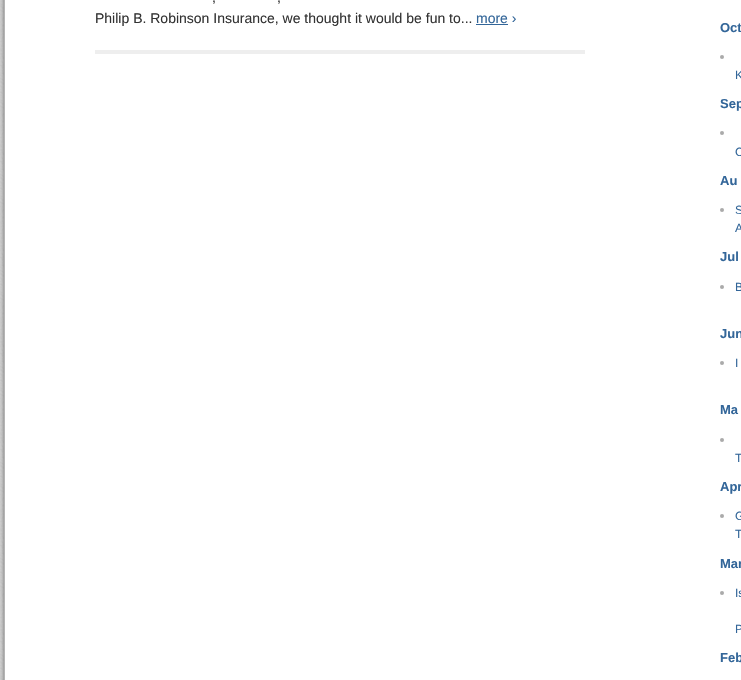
void draw(SkCanvas* canvas) {
	SkPaint paint;
	paint.setAntiAlias(true);
	canvas->clear(0xffffffff);
	canvas->drawImageRect(SkImages::DeferredFromEncodedData(SkData::MakeFromFileName("img1.png")), SkRect::MakeXYWH(0, 0, 4, 680), SkSamplingOptions());
	paint.setColor(0x80000000);
	paint.setMaskFilter(SkMaskFilter::MakeBlur(kNormal_SkBlurStyle, 2));
	canvas->drawRoundRect(SkRect::MakeXYWH(4, -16, 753, 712), 10, 10, paint);
	paint.setMaskFilter(nullptr);
	paint.setColor(0xffffffff);
	canvas->drawRect(SkRect::MakeXYWH(5, 0, 736, 680), paint);
	SkFont f1(fontMgr->matchFamilyStyle("Liberation Sans", SkFontStyle::Normal()), 14);
	f1.setSubpixel(true);
	paint.setColor(0xff333333);
	canvas->drawString(",", 212, 2, f1, paint);
	canvas->drawString(",", 277, 2, f1, paint);
	canvas->drawString("Philip B. Robinson Insurance, we thought it would be fun to...", 95, 23, f1, paint);
	paint.setColor(0xff336699);
	canvas->drawString("more ›", 476, 23, f1, paint);
	canvas->drawRect(SkRect::MakeXYWH(476, 24, 32, 1), paint);
	paint.setColor(0xffeeeeee);
	canvas->drawRect(SkRect::MakeXYWH(95, 50, 490, 4), paint);
	SkFont f2(fontMgr->matchFamilyStyle("Liberation Sans", SkFontStyle::Bold()), 13);
	f2.setSubpixel(true);
	paint.setColor(0xff336699);
	canvas->drawString("Oct", 720, 32, f2, paint);
	paint.setColor(0xffaaaaaa);
	canvas->drawCircle(722, 57, 2, paint);
	SkFont f3(fontMgr->matchFamilyStyle("Liberation Sans", SkFontStyle::Normal()), 12);
	f3.setSubpixel(true);
	paint.setColor(0xff336699);
	canvas->drawString("K", 735, 79, f3, paint);
	canvas->drawString("Sep", 720, 108, f2, paint);
	paint.setColor(0xffaaaaaa);
	canvas->drawCircle(722, 133, 2, paint);
	paint.setColor(0xff336699);
	canvas->drawString("C", 735, 156, f3, paint);
	canvas->drawString("Au", 720, 185, f2, paint);
	paint.setColor(0xffaaaaaa);
	canvas->drawCircle(722, 210, 2, paint);
	paint.setColor(0xff336699);
	canvas->drawString("S", 735, 214, f3, paint);
	canvas->drawString("A", 735, 232, f3, paint);
	canvas->drawString("Jul", 720, 261, f2, paint);
	paint.setColor(0xffaaaaaa);
	canvas->drawCircle(722, 287, 2, paint);
	paint.setColor(0xff336699);
	canvas->drawString("B", 735, 291, f3, paint);
	canvas->drawString("Jun", 720, 338, f2, paint);
	paint.setColor(0xffaaaaaa);
	canvas->drawCircle(722, 363, 2, paint);
	paint.setColor(0xff336699);
	canvas->drawString("I", 735, 367, f3, paint);
	canvas->drawString("Ma", 720, 414, f2, paint);
	paint.setColor(0xffaaaaaa);
	canvas->drawCircle(722, 440, 2, paint);
	paint.setColor(0xff336699);
	canvas->drawString("T", 735, 462, f3, paint);
	canvas->drawString("Apr", 720, 491, f2, paint);
	paint.setColor(0xffaaaaaa);
	canvas->drawCircle(722, 516, 2, paint);
	paint.setColor(0xff336699);
	canvas->drawString("G", 735, 520, f3, paint);
	canvas->drawString("T", 735, 538, f3, paint);
	canvas->drawString("Mar", 720, 568, f2, paint);
	paint.setColor(0xffaaaaaa);
	canvas->drawCircle(722, 593, 2, paint);
	paint.setColor(0xff336699);
	canvas->drawString("Is", 735, 597, f3, paint);
	canvas->drawString("P", 735, 633, f3, paint);
	canvas->drawString("Feb", 720, 662, f2, paint);
}
